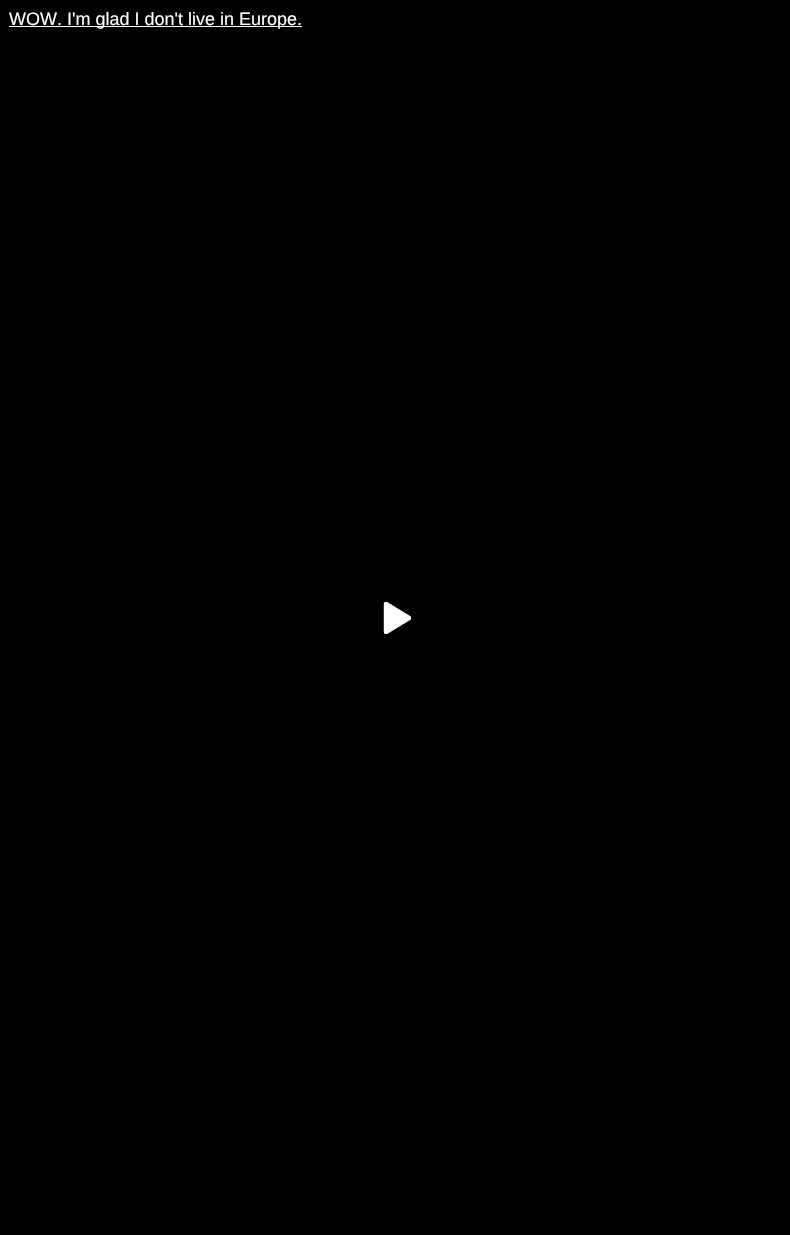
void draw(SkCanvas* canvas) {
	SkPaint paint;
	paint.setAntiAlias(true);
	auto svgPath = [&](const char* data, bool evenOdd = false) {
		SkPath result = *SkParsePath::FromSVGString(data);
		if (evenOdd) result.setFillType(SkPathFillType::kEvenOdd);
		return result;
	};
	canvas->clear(0xff000000);
	paint.setColor(0xffffffff);
	canvas->drawRect(SkRect::MakeXYWH(9, 26, 293, 1), paint);
	SkFont f1(fontMgr->matchFamilyStyle("Liberation Sans", SkFontStyle::Normal()), 18);
	f1.setSubpixel(true);
	canvas->drawString("WOW. I'm glad I don't live in Europe.", 9, 25, f1, paint);
	canvas->drawPath(svgPath("M409 618L386 604V632Z"), paint);
	canvas->save();
	canvas->clipRect(SkRect::MakeXYWH(379, 602, 32, 32));
	paint.setStroke(true);
	paint.setStrokeWidth(4.4);
	paint.setStrokeJoin(SkPaint::kRound_Join);
	canvas->drawPath(svgPath("M409 618L386 604V632Z"), paint);
	canvas->restore();
}
